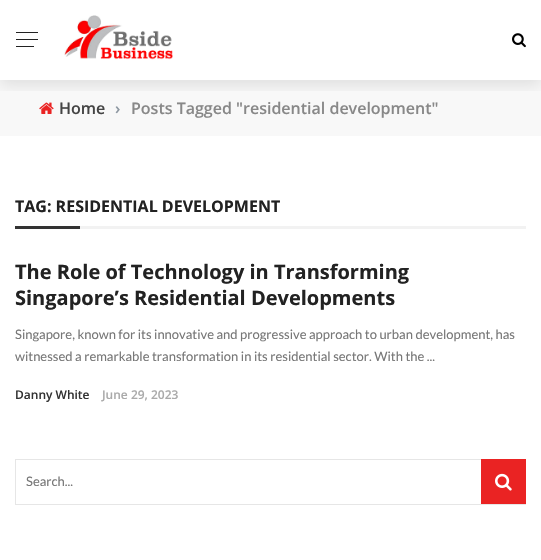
void draw(SkCanvas* canvas) {
	SkPaint paint;
	paint.setAntiAlias(true);
	canvas->clear(0xffffffff);
	paint.setColor(0xfff8f8f8);
	canvas->drawRect(SkRect::MakeXYWH(0, 80, 541, 56), paint);
	canvas->drawImageRect(SkImages::DeferredFromEncodedData(SkData::MakeFromFileName("img3.png")), SkRect::MakeXYWH(39, 102, 15, 12), SkSamplingOptions());
	canvas->save();
	canvas->clipRect(SkRect::MakeXYWH(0, 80, 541, 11));
	paint.setColor(0x1a000000);
	paint.setMaskFilter(SkMaskFilter::MakeBlur(kNormal_SkBlurStyle, 7.5));
	canvas->drawRect(SkRect::MakeXYWH(0, 5, 541, 80), paint);
	paint.setMaskFilter(nullptr);
	canvas->restore();
	paint.setColor(0xff222222);
	canvas->drawRect(SkRect::MakeXYWH(16, 32, 22, 1), paint);
	canvas->drawRect(SkRect::MakeXYWH(16, 39, 22, 1), paint);
	canvas->drawRect(SkRect::MakeXYWH(16, 46, 18, 1), paint);
	canvas->drawImageRect(SkImages::DeferredFromEncodedData(SkData::MakeFromFileName("img1.png")), SkRect::MakeXYWH(64, 15, 109, 45), SkSamplingOptions());
	canvas->drawImageRect(SkImages::DeferredFromEncodedData(SkData::MakeFromFileName("img2.png")), SkRect::MakeXYWH(512, 33, 14, 15), SkSamplingOptions());
	SkFont f1(fontMgr->matchFamilyStyle("Open Sans", SkFontStyle(600, SkFontStyle::kNormal_Width, SkFontStyle::kUpright_Slant)), 16);
	f1.setSubpixel(true);
	paint.setColor(0xff444444);
	canvas->drawString("Home", 59, 114, f1, paint);
	paint.setColor(0xff8d97a1);
	canvas->drawString("›", 115, 114, f1, paint);
	paint.setColor(0xff888888);
	canvas->drawString("Posts Tagged \"residential development\"", 131, 114, f1, paint);
	paint.setColor(0xfff2f2f2);
	canvas->drawRect(SkRect::MakeXYWH(80, 226, 446, 3), paint);
	SkFont f2(fontMgr->matchFamilyStyle("Open Sans", SkFontStyle::Bold()), 16);
	f2.setSubpixel(true);
	paint.setColor(0xff222222);
	canvas->drawString("TAG: RESIDENTIAL DEVELOPMENT", 15, 212, f2, paint);
	paint.setColor(0xff333333);
	canvas->drawRect(SkRect::MakeXYWH(15, 226, 65, 3), paint);
	SkFont f3(fontMgr->matchFamilyStyle("Open Sans", SkFontStyle::Bold()), 20);
	f3.setSubpixel(true);
	paint.setColor(0xff222222);
	canvas->drawString("The Role of Technology in Transforming", 15, 279, f3, paint);
	canvas->drawString("Singapore’s Residential Developments", 15, 305, f3, paint);
	SkFont f4(fontMgr->matchFamilyStyle("Lato", SkFontStyle::Normal()), 13);
	f4.setSubpixel(true);
	paint.setColor(0xff777777);
	canvas->drawString("Singapore, known for its innovative and progressive approach to urban development, has", 15, 339, f4, paint);
	canvas->drawString("witnessed a remarkable transformation in its residential sector. With the ...", 15, 361, f4, paint);
	SkFont f5(fontMgr->matchFamilyStyle("Open Sans", SkFontStyle(600, SkFontStyle::kNormal_Width, SkFontStyle::kUpright_Slant)), 12);
	f5.setSubpixel(true);
	paint.setColor(0xff333333);
	canvas->drawString("Danny White", 15, 399, f5, paint);
	paint.setColor(0xffaaaaaa);
	canvas->drawString("June 29, 2023", 102, 399, f5, paint);
	paint.setStroke(true);
	paint.setStrokeWidth(1);
	paint.setColor(0xffe6e6e6);
	canvas->drawRect(SkRect::MakeXYWH(15.5, 459.5, 510, 45), paint);
	paint.setStroke(false);
	paint.setColor(0xff777777);
	canvas->drawString("Search...", 26, 486, f4, paint);
	paint.setColor(0xffea2323);
	canvas->drawRect(SkRect::MakeXYWH(481, 459, 45, 45), paint);
	canvas->drawImageRect(SkImages::DeferredFromEncodedData(SkData::MakeFromFileName("img4.png")), SkRect::MakeXYWH(495, 473, 17, 18), SkSamplingOptions());
}
